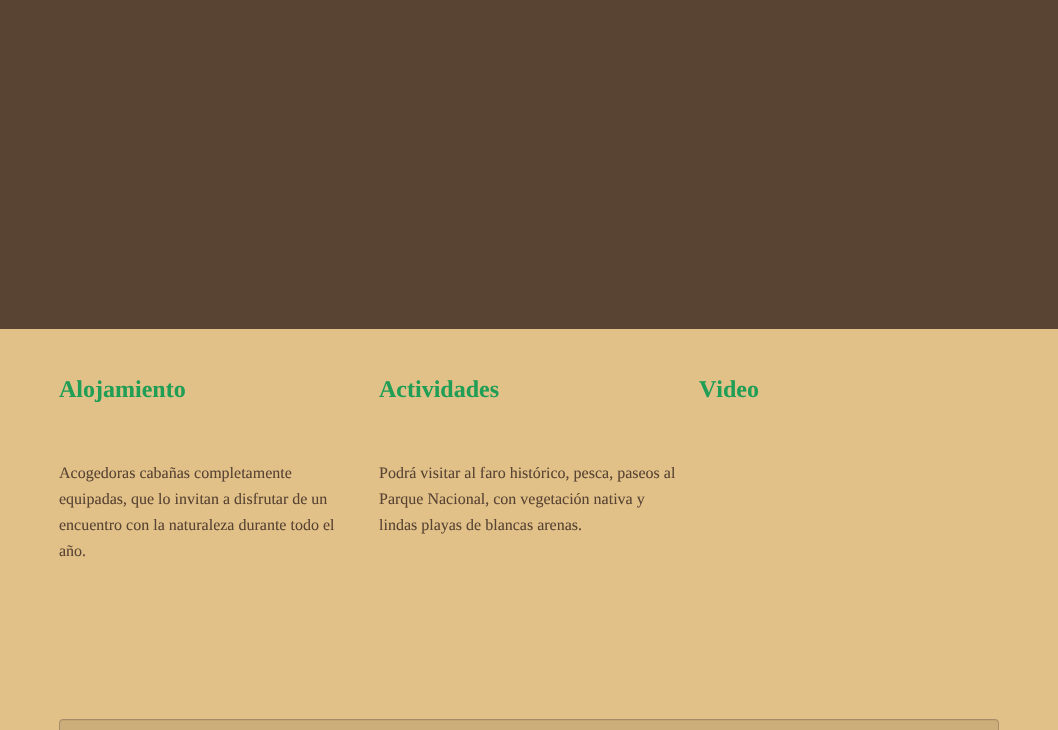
void draw(SkCanvas* canvas) {
	SkPaint paint;
	paint.setAntiAlias(true);
	auto svgPath = [&](const char* data, bool evenOdd = false) {
		SkPath result = *SkParsePath::FromSVGString(data);
		if (evenOdd) result.setFillType(SkPathFillType::kEvenOdd);
		return result;
	};
	canvas->clear(0xffe1c188);
	paint.setColor(0xff594433);
	canvas->drawRect(SkRect::MakeXYWH(0, 0, 1058, 329), paint);
	SkFont f1(fontMgr->matchFamilyStyle("Liberation Serif", SkFontStyle::Bold()), 24);
	f1.setSubpixel(true);
	paint.setColor(0xff209e55);
	canvas->drawString("Alojamiento", 59, 397, f1, paint);
	SkFont f2(fontMgr->matchFamilyStyle("Liberation Serif", SkFontStyle::Normal()), 16);
	f2.setSubpixel(true);
	paint.setColor(0xff594433);
	canvas->drawString("Acogedoras cabañas completamente", 59, 478, f2, paint);
	canvas->drawString("equipadas, que lo invitan a disfrutar de un", 59, 504, f2, paint);
	canvas->drawString("encuentro con la naturaleza durante todo el", 59, 530, f2, paint);
	canvas->drawString("año.", 59, 556, f2, paint);
	paint.setColor(0xff209e55);
	canvas->drawString("Actividades", 379, 397, f1, paint);
	paint.setColor(0xff594433);
	canvas->drawString("Podrá visitar al faro histórico, pesca, paseos al", 379, 478, f2, paint);
	canvas->drawString("Parque Nacional, con vegetación nativa y", 379, 504, f2, paint);
	canvas->drawString("lindas playas de blancas arenas.", 379, 530, f2, paint);
	paint.setColor(0xff209e55);
	canvas->drawString("Video", 699, 397, f1, paint);
	paint.setColor(0xffcbae7a);
	canvas->drawRoundRect(SkRect::MakeXYWH(59, 719, 940, 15), 4, 4, paint);
	paint.setColor(0xffc1a574);
	canvas->drawPath(svgPath("M63 721H995C997 721 998 722 998 724C998 722 997 720 995 720H63C61 720 60 722 60 724C60 722 61 721 63 721Z"), paint);
	paint.setStroke(true);
	paint.setStrokeWidth(1);
	paint.setColor(0xffa68c69);
	canvas->drawRoundRect(SkRect::MakeXYWH(59.5, 719.5, 939, 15), 3.5, 3.5, paint);
}
